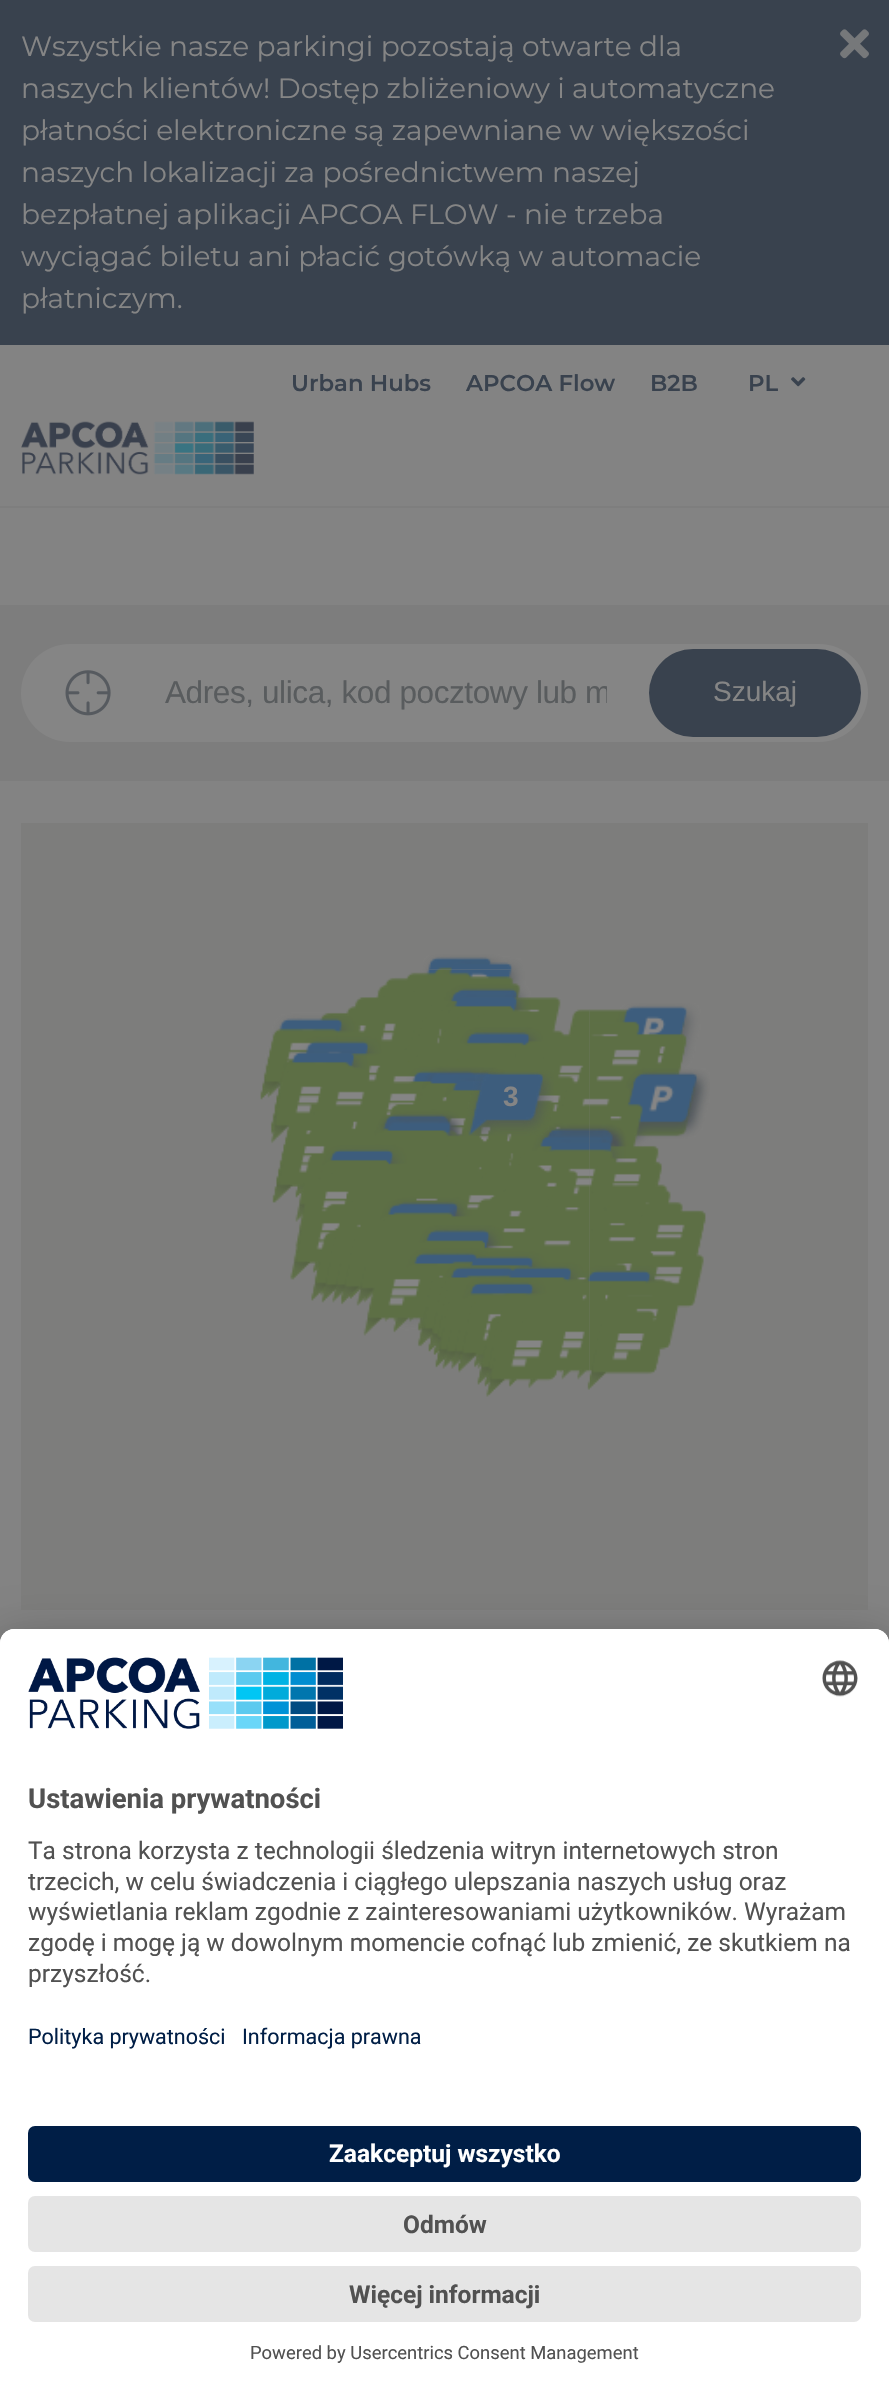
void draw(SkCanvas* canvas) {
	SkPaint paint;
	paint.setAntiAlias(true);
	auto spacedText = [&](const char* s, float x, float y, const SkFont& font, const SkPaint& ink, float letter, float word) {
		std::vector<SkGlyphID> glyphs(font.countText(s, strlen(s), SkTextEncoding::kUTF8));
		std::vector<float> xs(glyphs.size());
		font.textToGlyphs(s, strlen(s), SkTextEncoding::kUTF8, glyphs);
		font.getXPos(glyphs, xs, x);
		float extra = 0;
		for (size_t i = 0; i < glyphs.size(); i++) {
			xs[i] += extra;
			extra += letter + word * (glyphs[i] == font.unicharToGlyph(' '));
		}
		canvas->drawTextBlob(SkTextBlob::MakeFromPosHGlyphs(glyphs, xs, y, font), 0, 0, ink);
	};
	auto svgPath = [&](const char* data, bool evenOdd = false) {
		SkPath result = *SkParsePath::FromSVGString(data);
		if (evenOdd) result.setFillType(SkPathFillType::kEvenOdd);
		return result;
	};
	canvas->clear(0xff838383);
	paint.setColor(0xff7e7e7e);
	canvas->drawRect(SkRect::MakeXYWH(0, 506, 889, 2), paint);
	paint.setColor(0xff39424e);
	canvas->drawRect(SkRect::MakeXYWH(0, 0, 889, 345), paint);
	SkFont f1(fontMgr->matchFamilyStyle("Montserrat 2", SkFontStyle(100, SkFontStyle::kNormal_Width, SkFontStyle::kUpright_Slant)), 28);
	f1.setSubpixel(true);
	paint.setColor(0xff858585);
	canvas->drawString("Wszystkie nasze parkingi pozostają otwarte dla", 21, 56, f1, paint);
	canvas->drawString("naszych klientów! Dostęp zbliżeniowy i automatyczne", 21, 98, f1, paint);
	canvas->drawString("płatności elektroniczne są zapewniane w większości", 21, 140, f1, paint);
	canvas->drawString("naszych lokalizacji za pośrednictwem naszej", 21, 182, f1, paint);
	canvas->drawString("bezpłatnej aplikacji APCOA FLOW - nie trzeba", 21, 224, f1, paint);
	canvas->drawString("wyciągać biletu ani płacić gotówką w automacie", 21, 266, f1, paint);
	canvas->drawString("płatniczym.", 21, 308, f1, paint);
	canvas->drawImageRect(SkImages::DeferredFromEncodedData(SkData::MakeFromFileName("img1.png")), SkRect::MakeXYWH(840, 29, 29, 30), SkSamplingOptions());
	SkFont f2(fontMgr->matchFamilyStyle("Montserrat", SkFontStyle(100, SkFontStyle::kNormal_Width, SkFontStyle::kUpright_Slant)), 22.75);
	f2.setSubpixel(true);
	paint.setColor(0xff39424e);
	canvas->drawString("Urban Hubs", 291, 391, f2, paint);
	canvas->drawString("APCOA Flow", 466, 391, f2, paint);
	canvas->drawString("B2B", 650, 391, f2, paint);
	canvas->drawString("PL", 748, 391, f2, paint);
	canvas->drawImageRect(SkImages::DeferredFromEncodedData(SkData::MakeFromFileName("img2.png")), SkRect::MakeXYWH(791, 377, 15, 10), SkSamplingOptions());
	canvas->drawImageRect(SkImages::DeferredFromEncodedData(SkData::MakeFromFileName("img3.png")), SkRect::MakeXYWH(21, 421, 233, 54), SkSamplingOptions());
	paint.setColor(0xff7d7d7d);
	canvas->drawRect(SkRect::MakeXYWH(0, 605, 889, 176), paint);
	paint.setColor(0xff858585);
	canvas->drawRoundRect(SkRect::MakeXYWH(21, 644, 847, 98), 49, 49, paint);
	canvas->drawImageRect(SkImages::DeferredFromEncodedData(SkData::MakeFromFileName("img4.png")), SkRect::MakeXYWH(65, 670, 46, 46), SkSamplingOptions());
	canvas->save();
	canvas->clipRect(SkRect::MakeXYWH(165, 676, 442, 36));
	SkFont f3(fontMgr->matchFamilyStyle("Liberation Sans", SkFontStyle::Normal()), 31.5);
	f3.setSubpixel(true);
	paint.setColor(0xff595c5e);
	spacedText("Adres, ulica, kod pocztowy lub m", 165, 703, f3, paint, -0.4, 0);
	canvas->restore();
	paint.setColor(0xff39424e);
	canvas->drawRoundRect(SkRect::MakeXYWH(649, 649, 212, 88), 44, 44, paint);
	SkFont f4(fontMgr->matchFamilyStyle("Liberation Sans", SkFontStyle::Normal()), 28);
	f4.setSubpixel(true);
	paint.setColor(0xff858585);
	canvas->drawString("Szukaj", 713, 701, f4, paint);
	paint.setColor(0xff7d7d7c);
	canvas->drawRect(SkRect::MakeXYWH(21, 823, 847, 787), paint);
	canvas->drawImageRect(SkImages::DeferredFromEncodedData(SkData::MakeFromFileName("img6.png")), SkRect::MakeXYWH(260, 969, 330, 428), SkSamplingOptions());
	canvas->drawImageRect(SkImages::DeferredFromEncodedData(SkData::MakeFromFileName("img5.png")), SkRect::MakeXYWH(423, 954, 100, 16), SkSamplingOptions());
	canvas->drawImageRect(SkImages::DeferredFromEncodedData(SkData::MakeFromFileName("img7.png")), SkRect::MakeXYWH(589, 1003, 121, 386), SkSamplingOptions());
	canvas->drawImageRect(SkImages::DeferredFromEncodedData(SkData::MakeFromFileName("img8.png")), SkRect::MakeXYWH(467, 1070, 87, 66), SkSamplingOptions());
	SkFont f5(fontMgr->matchFamilyStyle("Liberation Sans", SkFontStyle::Bold()), 28);
	f5.setSubpixel(true);
	paint.setColor(0xff858585);
	canvas->drawString("3", 503, 1106, f5, paint);
	paint.setColor(0x4d000000);
	paint.setMaskFilter(SkMaskFilter::MakeBlur(kNormal_SkBlurStyle, 24.5));
	canvas->drawRoundRect(SkRect::MakeXYWH(0, 1664, 889, 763), 14, 14, paint);
	paint.setMaskFilter(nullptr);
	paint.setColor(0x38000000);
	paint.setMaskFilter(SkMaskFilter::MakeBlur(kNormal_SkBlurStyle, 23));
	canvas->drawRoundRect(SkRect::MakeXYWH(0, 1638, 889, 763), 14, 14, paint);
	paint.setMaskFilter(nullptr);
	paint.setColor(0xffffffff);
	canvas->drawPath(svgPath("M14 1629H875C882.5 1629 889 1635.5 889 1643V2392H0V1643C0 1635.5 6.5 1629 14 1629Z"), paint);
	canvas->drawPath(svgPath("M14 1629H875C882.5 1629 889 1635.5 889 1643V2105H0V1643C0 1635.5 6.5 1629 14 1629Z"), paint);
	canvas->drawImageRect(SkImages::DeferredFromEncodedData(SkData::MakeFromFileName("img9.png")), SkRect::MakeXYWH(28, 1657, 315, 72), SkSamplingOptions());
	canvas->drawImageRect(SkImages::DeferredFromEncodedData(SkData::MakeFromFileName("img10.png")), SkRect::MakeXYWH(822, 1660, 36, 37), SkSamplingOptions());
	SkFont f6(fontMgr->matchFamilyStyle("Roboto", SkFontStyle::Bold()), 27.5);
	f6.setSubpixel(true);
	paint.setColor(0xff515151);
	canvas->drawString("Ustawienia prywatności", 28, 1808, f6, paint);
	SkFont f7(fontMgr->matchFamilyStyle("Roboto", SkFontStyle::Normal()), 24.5);
	f7.setSubpixel(true);
	canvas->drawString("Ta strona korzysta z technologii śledzenia witryn internetowych stron", 28, 1859, f7, paint);
	canvas->drawString("trzecich, w celu świadczenia i ciągłego ulepszania naszych usług oraz", 28, 1890, f7, paint);
	canvas->drawString("wyświetlania reklam zgodnie z zainteresowaniami użytkowników. Wyrażam", 28, 1920, f7, paint);
	canvas->drawString("zgodę i mogę ją w dowolnym momencie cofnąć lub zmienić, ze skutkiem na", 28, 1951, f7, paint);
	canvas->drawString("przyszłość.", 28, 1982, f7, paint);
	SkFont f8(fontMgr->matchFamilyStyle("Roboto", SkFontStyle::Normal()), 21.5);
	f8.setSubpixel(true);
	paint.setColor(0xff001e46);
	canvas->drawString("Polityka prywatności", 28, 2044, f8, paint);
	canvas->drawString("Informacja prawna", 242, 2044, f8, paint);
	canvas->drawRoundRect(SkRect::MakeXYWH(28, 2126, 833, 56), 7, 7, paint);
	SkFont f9(fontMgr->matchFamilyStyle("Roboto", SkFontStyle::Bold()), 24.5);
	f9.setSubpixel(true);
	paint.setColor(0xffffffff);
	canvas->drawString("Zaakceptuj wszystko", 329, 2162, f9, paint);
	paint.setColor(0xffe5e5e5);
	canvas->drawRoundRect(SkRect::MakeXYWH(28, 2196, 833, 56), 7, 7, paint);
	paint.setColor(0xff515151);
	canvas->drawString("Odmów", 403, 2233, f9, paint);
	paint.setColor(0xffe5e5e5);
	canvas->drawRoundRect(SkRect::MakeXYWH(28, 2266, 833, 56), 7, 7, paint);
	paint.setColor(0xff515151);
	canvas->drawString("Więcej informacji", 349, 2303, f9, paint);
	SkFont f10(fontMgr->matchFamilyStyle("Roboto", SkFontStyle::Normal()), 18.4);
	f10.setSubpixel(true);
	canvas->drawString("Powered by Usercentrics Consent Management", 250, 2359, f10, paint);
}
